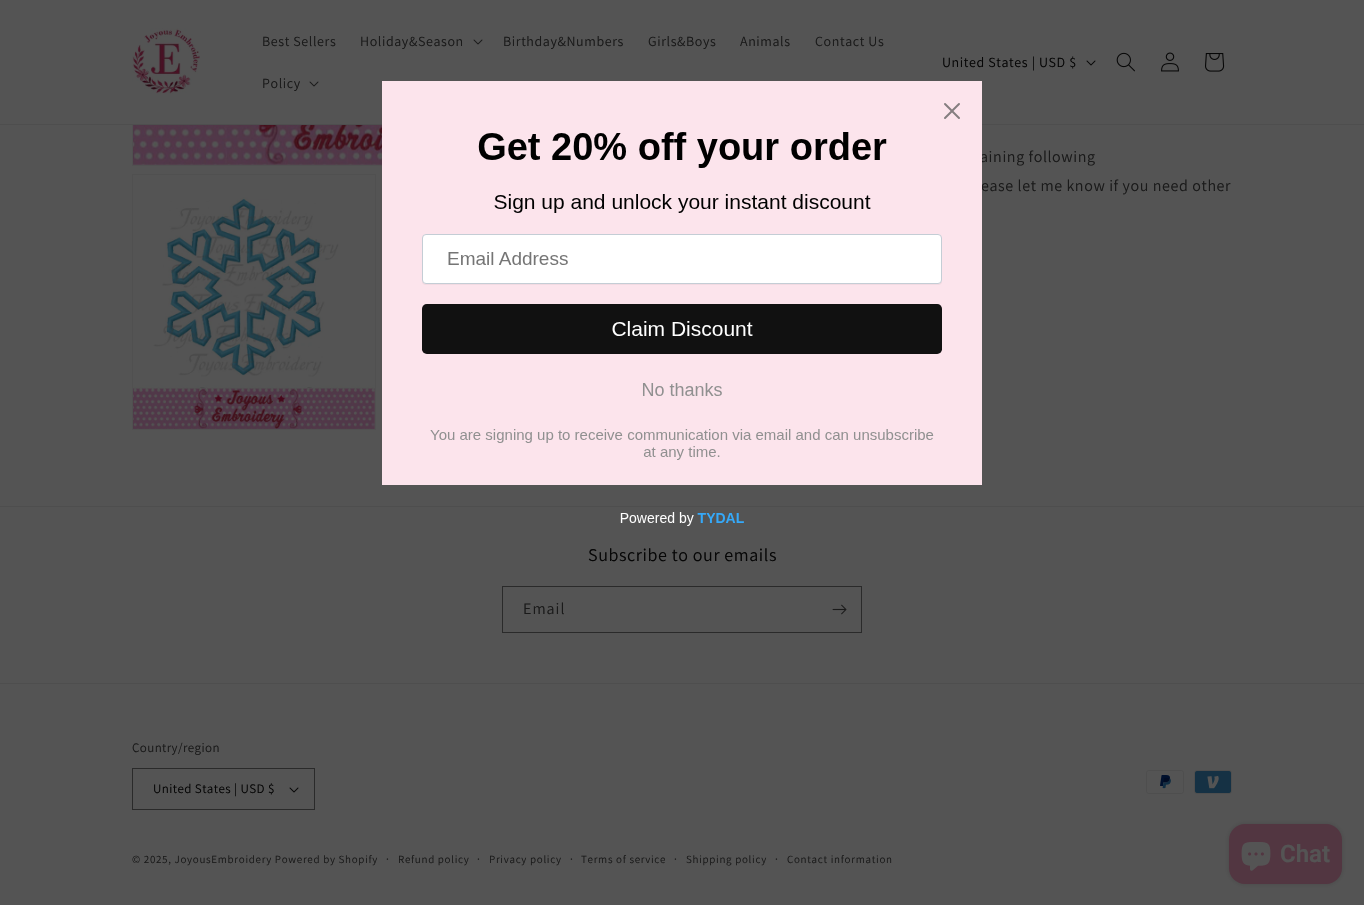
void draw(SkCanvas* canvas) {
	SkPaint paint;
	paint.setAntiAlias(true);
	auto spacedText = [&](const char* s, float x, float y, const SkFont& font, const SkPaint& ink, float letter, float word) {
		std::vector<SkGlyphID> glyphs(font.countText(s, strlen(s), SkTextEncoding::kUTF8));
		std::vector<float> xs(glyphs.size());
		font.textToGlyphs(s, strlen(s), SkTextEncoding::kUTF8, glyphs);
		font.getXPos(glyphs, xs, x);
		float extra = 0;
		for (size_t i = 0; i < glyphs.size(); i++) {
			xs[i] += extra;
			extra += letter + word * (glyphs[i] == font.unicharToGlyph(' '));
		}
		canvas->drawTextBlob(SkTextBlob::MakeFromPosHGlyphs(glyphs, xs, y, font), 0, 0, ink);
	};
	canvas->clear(0xffffffff);
	paint.setStroke(true);
	paint.setStrokeWidth(1);
	paint.setColor(0xfff3f3f3);
	canvas->drawRect(SkRect::MakeXYWH(132.5, -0.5, 494, 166), paint);
	paint.setStroke(false);
	paint.setColor(0xffffffff);
	canvas->drawRect(SkRect::MakeXYWH(132, 0, 495, 124), paint);
	paint.setColor(0xffececec);
	canvas->drawRect(SkRect::MakeXYWH(0, 124, 1364, 1), paint);
	canvas->drawImageRect(SkImages::DeferredFromEncodedData(SkData::MakeFromFileName("img2.png")), SkRect::MakeXYWH(132, 28, 68, 66), SkSamplingOptions());
	SkFont f1(fontMgr->matchFamilyStyle("Assistant", SkFontStyle::Normal()), 14);
	f1.setSubpixel(true);
	paint.setColor(0xff4d4d4d);
	spacedText("Best Sellers", 262, 46, f1, paint, 0.6, 0);
	spacedText("Holiday&Season", 360, 46, f1, paint, 0.6, 0);
	canvas->drawImageRect(SkImages::DeferredFromEncodedData(SkData::MakeFromFileName("img3.png")), SkRect::MakeXYWH(473, 39, 10, 6), SkSamplingOptions());
	spacedText("Birthday&Numbers", 503, 46, f1, paint, 0.6, 0);
	spacedText("Girls&Boys", 648, 46, f1, paint, 0.6, 0);
	spacedText("Animals", 740, 46, f1, paint, 0.6, 0);
	spacedText("Contact Us", 815, 46, f1, paint, 0.6, 0);
	spacedText("Policy", 262, 88, f1, paint, 0.6, 0);
	canvas->drawImageRect(SkImages::DeferredFromEncodedData(SkData::MakeFromFileName("img3.png")), SkRect::MakeXYWH(309, 81, 10, 6), SkSamplingOptions());
	paint.setColor(0xff121212);
	spacedText("United States | USD $", 942, 67, f1, paint, 0.6, 0);
	canvas->drawImageRect(SkImages::DeferredFromEncodedData(SkData::MakeFromFileName("img4.png")), SkRect::MakeXYWH(1086, 60, 10, 6), SkSamplingOptions());
	canvas->drawImageRect(SkImages::DeferredFromEncodedData(SkData::MakeFromFileName("img5.png")), SkRect::MakeXYWH(1116, 52, 19, 20), SkSamplingOptions());
	canvas->drawImageRect(SkImages::DeferredFromEncodedData(SkData::MakeFromFileName("img6.png")), SkRect::MakeXYWH(1161, 52, 18, 20), SkSamplingOptions());
	canvas->drawImageRect(SkImages::DeferredFromEncodedData(SkData::MakeFromFileName("img7.png")), SkRect::MakeXYWH(1205, 53, 20, 19), SkSamplingOptions());
	canvas->drawImageRect(SkImages::DeferredFromEncodedData(SkData::MakeFromFileName("img8.png")), SkRect::MakeXYWH(133, 125, 249, 40), SkSamplingOptions());
	paint.setStroke(true);
	paint.setColor(0xfff3f3f3);
	canvas->drawRect(SkRect::MakeXYWH(132.5, 174.5, 243, 255), paint);
	canvas->drawImageRect(SkImages::DeferredFromEncodedData(SkData::MakeFromFileName("img9.png")), SkRect::MakeXYWH(133, 197, 242, 232), SkSamplingOptions());
	SkFont f2(fontMgr->matchFamilyStyle("Assistant", SkFontStyle::Normal()), 16);
	f2.setSubpixel(true);
	paint.setStroke(false);
	paint.setColor(0xff4d4d4d);
	spacedText("aining following", 980, 162, f2, paint, 0.6, 0);
	spacedText("ease let me know if you need other", 981, 191, f2, paint, 0.6, 0);
	paint.setColor(0xffececec);
	canvas->drawRect(SkRect::MakeXYWH(0, 506, 1364, 1), paint);
	SkFont f3(fontMgr->matchFamilyStyle("Assistant", SkFontStyle::Normal()), 18);
	f3.setSubpixel(true);
	paint.setColor(0xff121212);
	spacedText("Subscribe to our emails", 588, 561, f3, paint, 0.6, 0);
	paint.setStroke(true);
	paint.setColor(0xff7d7d7d);
	canvas->drawRect(SkRect::MakeXYWH(502.5, 586.5, 359, 46), paint);
	paint.setStroke(false);
	paint.setColor(0xff4d4d4d);
	spacedText("Email", 523, 614, f2, paint, 1, 0);
	canvas->drawImageRect(SkImages::DeferredFromEncodedData(SkData::MakeFromFileName("img10.png")), SkRect::MakeXYWH(832, 604, 15, 11), SkSamplingOptions());
	paint.setColor(0xffececec);
	canvas->drawRect(SkRect::MakeXYWH(0, 683, 1364, 1), paint);
	SkFont f4(fontMgr->matchFamilyStyle("Assistant", SkFontStyle::Normal()), 13);
	f4.setSubpixel(true);
	paint.setColor(0xff4d4d4d);
	spacedText("Country/region", 132, 752, f4, paint, 0.4, 0);
	canvas->drawImageRect(SkImages::DeferredFromEncodedData(SkData::MakeFromFileName("img4.png")), SkRect::MakeXYWH(289, 787, 10, 6), SkSamplingOptions());
	paint.setStroke(true);
	paint.setColor(0xff7d7d7d);
	canvas->drawRect(SkRect::MakeXYWH(132.5, 768.5, 182, 41), paint);
	paint.setStroke(false);
	paint.setColor(0xff121212);
	spacedText("United States | USD $", 153, 793, f4, paint, 0.4, 0);
	canvas->drawImageRect(SkImages::DeferredFromEncodedData(SkData::MakeFromFileName("img11.png")), SkRect::MakeXYWH(1146, 770, 38, 24), SkSamplingOptions());
	canvas->drawImageRect(SkImages::DeferredFromEncodedData(SkData::MakeFromFileName("img12.png")), SkRect::MakeXYWH(1194, 770, 38, 24), SkSamplingOptions());
	SkFont f5(fontMgr->matchFamilyStyle("Assistant", SkFontStyle::Normal()), 11);
	f5.setSubpixel(true);
	paint.setColor(0xff4d4d4d);
	spacedText("© 2025, JoyousEmbroidery Powered by Shopify", 132, 863, f5, paint, 0.7, 0);
	SkFont f6(fontMgr->matchFamilyStyle("Assistant", SkFontStyle::Normal()), 12);
	f6.setSubpixel(true);
	spacedText("·", 386, 863, f6, paint, 0.7, 0);
	spacedText("Refund policy", 398, 863, f5, paint, 0.7, 0);
	spacedText("·", 477, 863, f6, paint, 0.7, 0);
	spacedText("Privacy policy", 489, 863, f5, paint, 0.7, 0);
	spacedText("·", 570, 863, f6, paint, 0.7, 0);
	spacedText("Terms of service", 581, 863, f5, paint, 0.7, 0);
	spacedText("·", 674, 863, f6, paint, 0.7, 0);
	spacedText("Shipping policy", 686, 863, f5, paint, 0.7, 0);
	spacedText("·", 775, 863, f6, paint, 0.7, 0);
	spacedText("Contact information", 787, 863, f5, paint, 0.7, 0);
	paint.setColor(0x26000000);
	paint.setMaskFilter(SkMaskFilter::MakeBlur(kNormal_SkBlurStyle, 2.5));
	canvas->drawRoundRect(SkRect::MakeXYWH(1229, 824, 113, 60), 16, 16, paint);
	paint.setMaskFilter(nullptr);
	paint.setColor(0xfff9a2c5);
	canvas->drawRoundRect(SkRect::MakeXYWH(1229, 824, 113, 60), 16, 16, paint);
	canvas->drawImageRect(SkImages::DeferredFromEncodedData(SkData::MakeFromFileName("img13.png")), SkRect::MakeXYWH(1241, 842, 30, 29), SkSamplingOptions());
	SkFont f7(fontMgr->matchFamilyStyle("Roboto", SkFontStyle(600, SkFontStyle::kNormal_Width, SkFontStyle::kUpright_Slant)), 24);
	f7.setSubpixel(true);
	paint.setColor(0xffffffff);
	canvas->drawString("Chat", 1280, 862, f7, paint);
	canvas->drawImageRect(SkImages::DeferredFromEncodedData(SkData::MakeFromFileName("img1.png")), SkRect::MakeXYWH(0, 0, 1364, 905), SkSamplingOptions());
}
